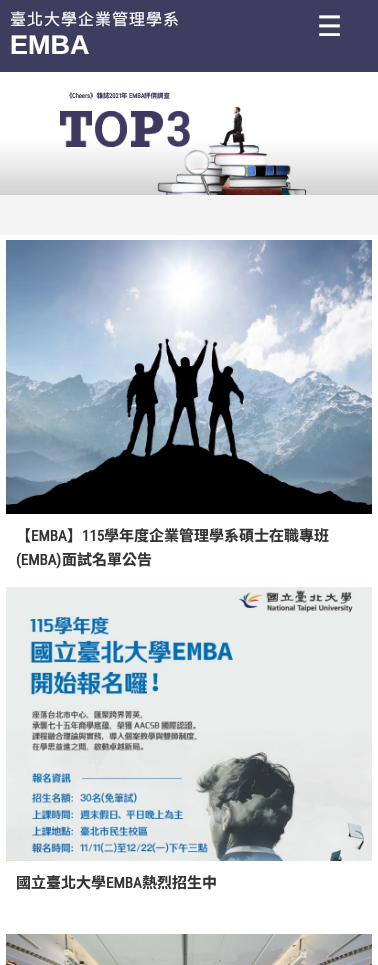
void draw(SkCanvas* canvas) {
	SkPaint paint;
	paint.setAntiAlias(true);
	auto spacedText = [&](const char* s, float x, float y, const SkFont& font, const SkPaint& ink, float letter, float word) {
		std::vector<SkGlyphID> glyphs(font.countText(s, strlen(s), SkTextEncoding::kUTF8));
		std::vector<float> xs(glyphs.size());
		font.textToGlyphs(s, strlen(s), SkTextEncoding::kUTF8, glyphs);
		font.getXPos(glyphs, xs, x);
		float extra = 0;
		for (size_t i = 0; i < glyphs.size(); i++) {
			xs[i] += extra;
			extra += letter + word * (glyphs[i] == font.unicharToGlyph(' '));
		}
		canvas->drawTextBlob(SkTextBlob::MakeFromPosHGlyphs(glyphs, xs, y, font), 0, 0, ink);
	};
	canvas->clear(0xfff3f3f3);
	paint.setColor(0xff3d3e5f);
	canvas->drawRect(SkRect::MakeXYWH(0, 0, 378, 72), paint);
	SkFont f1(fontMgr->matchFamilyStyle("Noto Sans TC", SkFontStyle::Normal()), 16);
	f1.setSubpixel(true);
	paint.setColor(0xffffffff);
	spacedText("臺北大學企業管理學系", 10, 25, f1, paint, 1, 0);
	SkFont f2(fontMgr->matchFamilyStyle("Liberation Sans", SkFontStyle::Bold()), 27);
	f2.setSubpixel(true);
	canvas->drawString("EMBA", 10, 54, f2, paint);
	SkFont f3(fontMgr->matchFamilyStyle("DejaVu Sans", SkFontStyle::Normal()), 28);
	f3.setSubpixel(true);
	canvas->drawString("☰", 317, 36, f3, paint);
	canvas->drawImageRect(SkImages::DeferredFromEncodedData(SkData::MakeFromFileName("img1.png")), SkRect::MakeXYWH(0, 72, 378, 123), SkSamplingOptions());
	SkFont f4(fontMgr->matchFamilyStyle("Noto Sans TC", SkFontStyle::Bold()), 6.5);
	f4.setSubpixel(true);
	paint.setColor(0xff413962);
	canvas->drawString("《", 66, 98, f4, paint);
	SkFont f5(fontMgr->matchFamilyStyle("Roboto Condensed", SkFontStyle::Bold()), 6.5);
	f5.setSubpixel(true);
	canvas->drawString("Cheers", 72, 98, f5, paint);
	canvas->drawString("》雜誌", 90, 98, f4, paint);
	canvas->drawString("2021", 109, 98, f5, paint);
	canvas->drawString("年", 121, 98, f4, paint);
	canvas->drawString("EMBA", 129, 98, f5, paint);
	canvas->drawString("評價調查", 144, 98, f4, paint);
	canvas->drawImageRect(SkImages::DeferredFromEncodedData(SkData::MakeFromFileName("img2.png")), SkRect::MakeXYWH(60, 111, 32, 36), SkSamplingOptions());
	canvas->drawImageRect(SkImages::DeferredFromEncodedData(SkData::MakeFromFileName("img3.png")), SkRect::MakeXYWH(95, 111, 32, 36), SkSamplingOptions());
	canvas->drawImageRect(SkImages::DeferredFromEncodedData(SkData::MakeFromFileName("img4.png")), SkRect::MakeXYWH(131, 111, 32, 36), SkSamplingOptions());
	canvas->drawImageRect(SkImages::DeferredFromEncodedData(SkData::MakeFromFileName("img5.png")), SkRect::MakeXYWH(167, 111, 23, 36), SkSamplingOptions());
	paint.setColor(0xffffffff);
	canvas->drawRect(SkRect::MakeXYWH(0, 235, 378, 730), paint);
	canvas->drawImageRect(SkImages::DeferredFromEncodedData(SkData::MakeFromFileName("img6.png")), SkRect::MakeXYWH(6, 240, 366, 274), SkSamplingOptions());
	SkFont f6(fontMgr->matchFamilyStyle("Noto Sans TC", SkFontStyle::Bold()), 15);
	f6.setSubpixel(true);
	paint.setColor(0xff333333);
	canvas->drawString("【", 16, 541, f6, paint);
	SkFont f7(fontMgr->matchFamilyStyle("Roboto Condensed", SkFontStyle::Bold()), 15);
	f7.setSubpixel(true);
	canvas->drawString("EMBA", 31, 541, f7, paint);
	canvas->drawString("】", 67, 541, f6, paint);
	canvas->drawString("115", 82, 541, f7, paint);
	canvas->drawString("學年度企業管理學系碩士在職專班", 104, 541, f6, paint);
	canvas->drawString("(EMBA)", 16, 565, f7, paint);
	canvas->drawString("面試名單公告", 62, 565, f6, paint);
	canvas->drawImageRect(SkImages::DeferredFromEncodedData(SkData::MakeFromFileName("img7.png")), SkRect::MakeXYWH(6, 587, 366, 274), SkSamplingOptions());
	canvas->drawString("國立臺北大學", 16, 888, f6, paint);
	canvas->drawString("EMBA", 106, 888, f7, paint);
	canvas->drawString("熱烈招生中", 142, 888, f6, paint);
	canvas->drawImageRect(SkImages::DeferredFromEncodedData(SkData::MakeFromFileName("img8.png")), SkRect::MakeXYWH(6, 934, 366, 31), SkSamplingOptions());
}
